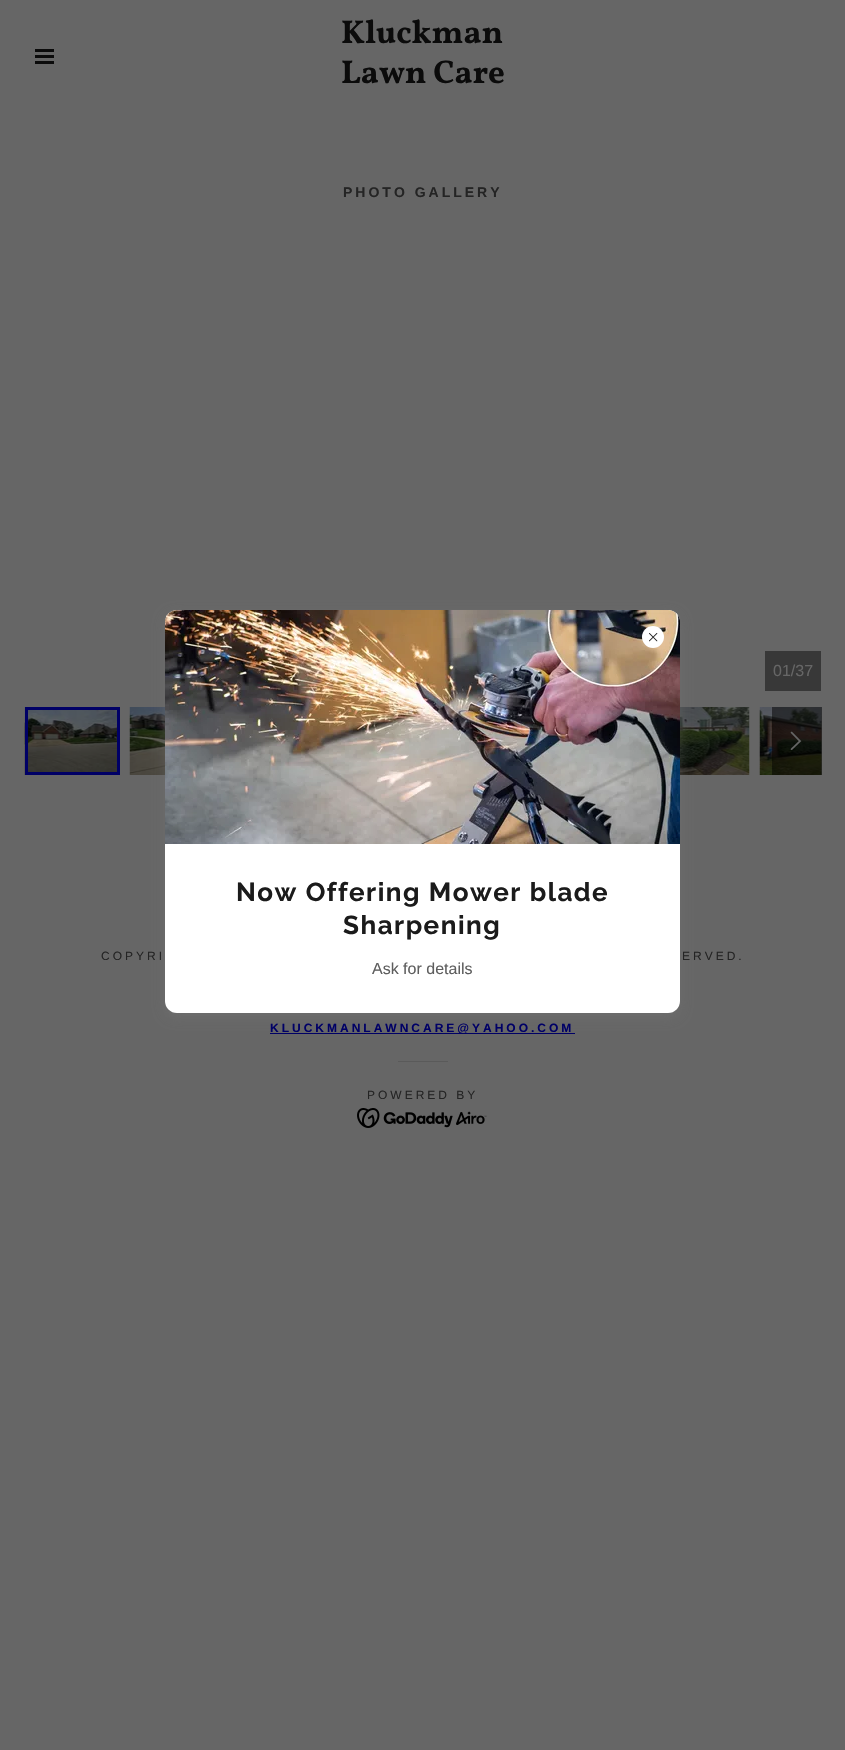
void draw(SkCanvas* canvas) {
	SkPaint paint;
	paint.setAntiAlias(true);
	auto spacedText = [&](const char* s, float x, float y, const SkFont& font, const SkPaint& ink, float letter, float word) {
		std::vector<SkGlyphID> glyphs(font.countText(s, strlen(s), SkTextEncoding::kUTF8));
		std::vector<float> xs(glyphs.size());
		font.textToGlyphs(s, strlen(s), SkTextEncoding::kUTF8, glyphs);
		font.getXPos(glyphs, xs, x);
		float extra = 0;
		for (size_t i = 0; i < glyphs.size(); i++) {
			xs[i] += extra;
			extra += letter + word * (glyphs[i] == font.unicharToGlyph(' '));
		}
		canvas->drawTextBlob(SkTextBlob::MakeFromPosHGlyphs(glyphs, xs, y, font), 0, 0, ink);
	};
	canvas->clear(0xff666666);
	paint.setColor(0xff0b0b0b);
	canvas->drawRect(SkRect::MakeXYWH(35, 49, 19, 3), paint);
	canvas->drawRect(SkRect::MakeXYWH(35, 55, 19, 3), paint);
	canvas->drawRect(SkRect::MakeXYWH(35, 61, 19, 3), paint);
	SkFont f1(fontMgr->matchFamilyStyle("Vollkorn", SkFontStyle::Bold()), 33);
	f1.setSubpixel(true);
	canvas->drawString("Kluckman", 341, 43, f1, paint);
	canvas->drawString("Lawn Care", 341, 83, f1, paint);
	SkFont f2(fontMgr->matchFamilyStyle("Liberation Sans", SkFontStyle::Bold()), 14);
	f2.setSubpixel(true);
	paint.setColor(0xff242424);
	spacedText("PHOTO GALLERY", 343, 197, f2, paint, 3, 0);
	paint.setColor(0xff383838);
	canvas->drawRect(SkRect::MakeXYWH(765, 651, 56, 40), paint);
	SkFont f3(fontMgr->matchFamilyStyle("Liberation Sans", SkFontStyle::Normal()), 16);
	f3.setSubpixel(true);
	paint.setColor(0xff666666);
	canvas->drawString("01/37", 773, 676, f3, paint);
	canvas->drawImageRect(SkImages::DeferredFromEncodedData(SkData::MakeFromFileName("img1.png")), SkRect::MakeXYWH(24, 707, 93, 68), SkSamplingOptions());
	paint.setStroke(true);
	paint.setStrokeWidth(3);
	paint.setColor(0xff000066);
	canvas->drawRect(SkRect::MakeXYWH(26.5, 708.5, 92, 65), paint);
	canvas->drawImageRect(SkImages::DeferredFromEncodedData(SkData::MakeFromFileName("img2.png")), SkRect::MakeXYWH(129, 707, 36, 68), SkSamplingOptions());
	canvas->drawImageRect(SkImages::DeferredFromEncodedData(SkData::MakeFromFileName("img3.png")), SkRect::MakeXYWH(680, 707, 70, 68), SkSamplingOptions());
	canvas->drawImageRect(SkImages::DeferredFromEncodedData(SkData::MakeFromFileName("img4.png")), SkRect::MakeXYWH(759, 707, 63, 68), SkSamplingOptions());
	paint.setStroke(false);
	paint.setColor(0x80000000);
	canvas->drawRect(SkRect::MakeXYWH(772, 707, 50, 68), paint);
	canvas->drawImageRect(SkImages::DeferredFromEncodedData(SkData::MakeFromFileName("img5.png")), SkRect::MakeXYWH(790, 731, 12, 19), SkSamplingOptions());
	paint.setColor(0xff000066);
	canvas->drawRect(SkRect::MakeXYWH(270, 1033, 305, 1), paint);
	paint.setColor(0x66757575);
	paint.setMaskFilter(SkMaskFilter::MakeBlur(kNormal_SkBlurStyle, 6));
	canvas->drawRoundRect(SkRect::MakeXYWH(165, 614, 515, 403), 12, 12, paint);
	paint.setMaskFilter(nullptr);
	paint.setColor(0xffffffff);
	canvas->drawRoundRect(SkRect::MakeXYWH(165, 610, 515, 403), 12, 12, paint);
	canvas->drawImageRect(SkImages::DeferredFromEncodedData(SkData::MakeFromFileName("img7.png")), SkRect::MakeXYWH(165, 610, 515, 234), SkSamplingOptions());
	canvas->drawCircle(653, 637, 11, paint);
	canvas->drawImageRect(SkImages::DeferredFromEncodedData(SkData::MakeFromFileName("img6.png")), SkRect::MakeXYWH(649, 633, 9, 9), SkSamplingOptions());
	SkFont f4(fontMgr->matchFamilyStyle("Raleway", SkFontStyle::Bold()), 26);
	f4.setSubpixel(true);
	paint.setColor(0xff1b1b1b);
	spacedText("Now Offering Mower blade", 236, 901, f4, paint, 1.5, 0);
	spacedText("Sharpening", 343, 934, f4, paint, 1.5, 0);
	paint.setColor(0xff5e5e5e);
	canvas->drawString("Ask for details", 372, 974, f3, paint);
	SkFont f5(fontMgr->matchFamilyStyle("Liberation Sans", SkFontStyle::Normal()), 12);
	f5.setSubpixel(true);
	paint.setColor(0xff242424);
	spacedText("COPYRI", 101, 960, f5, paint, 3, 0);
	spacedText("ERVED.", 682, 960, f5, paint, 3, 0);
	SkFont f6(fontMgr->matchFamilyStyle("Liberation Sans", SkFontStyle::Bold()), 12);
	f6.setSubpixel(true);
	paint.setColor(0xff000066);
	spacedText("KLUCKMANLAWNCARE@YAHOO.COM", 270, 1032, f6, paint, 3, 0);
	paint.setColor(0xff5a5a5a);
	canvas->drawRect(SkRect::MakeXYWH(398, 1061, 50, 1), paint);
	paint.setColor(0xff242424);
	spacedText("POWERED BY", 367, 1099, f5, paint, 3, 0);
	canvas->drawImageRect(SkImages::DeferredFromEncodedData(SkData::MakeFromFileName("img8.png")), SkRect::MakeXYWH(357, 1108, 130, 20), SkSamplingOptions());
}
